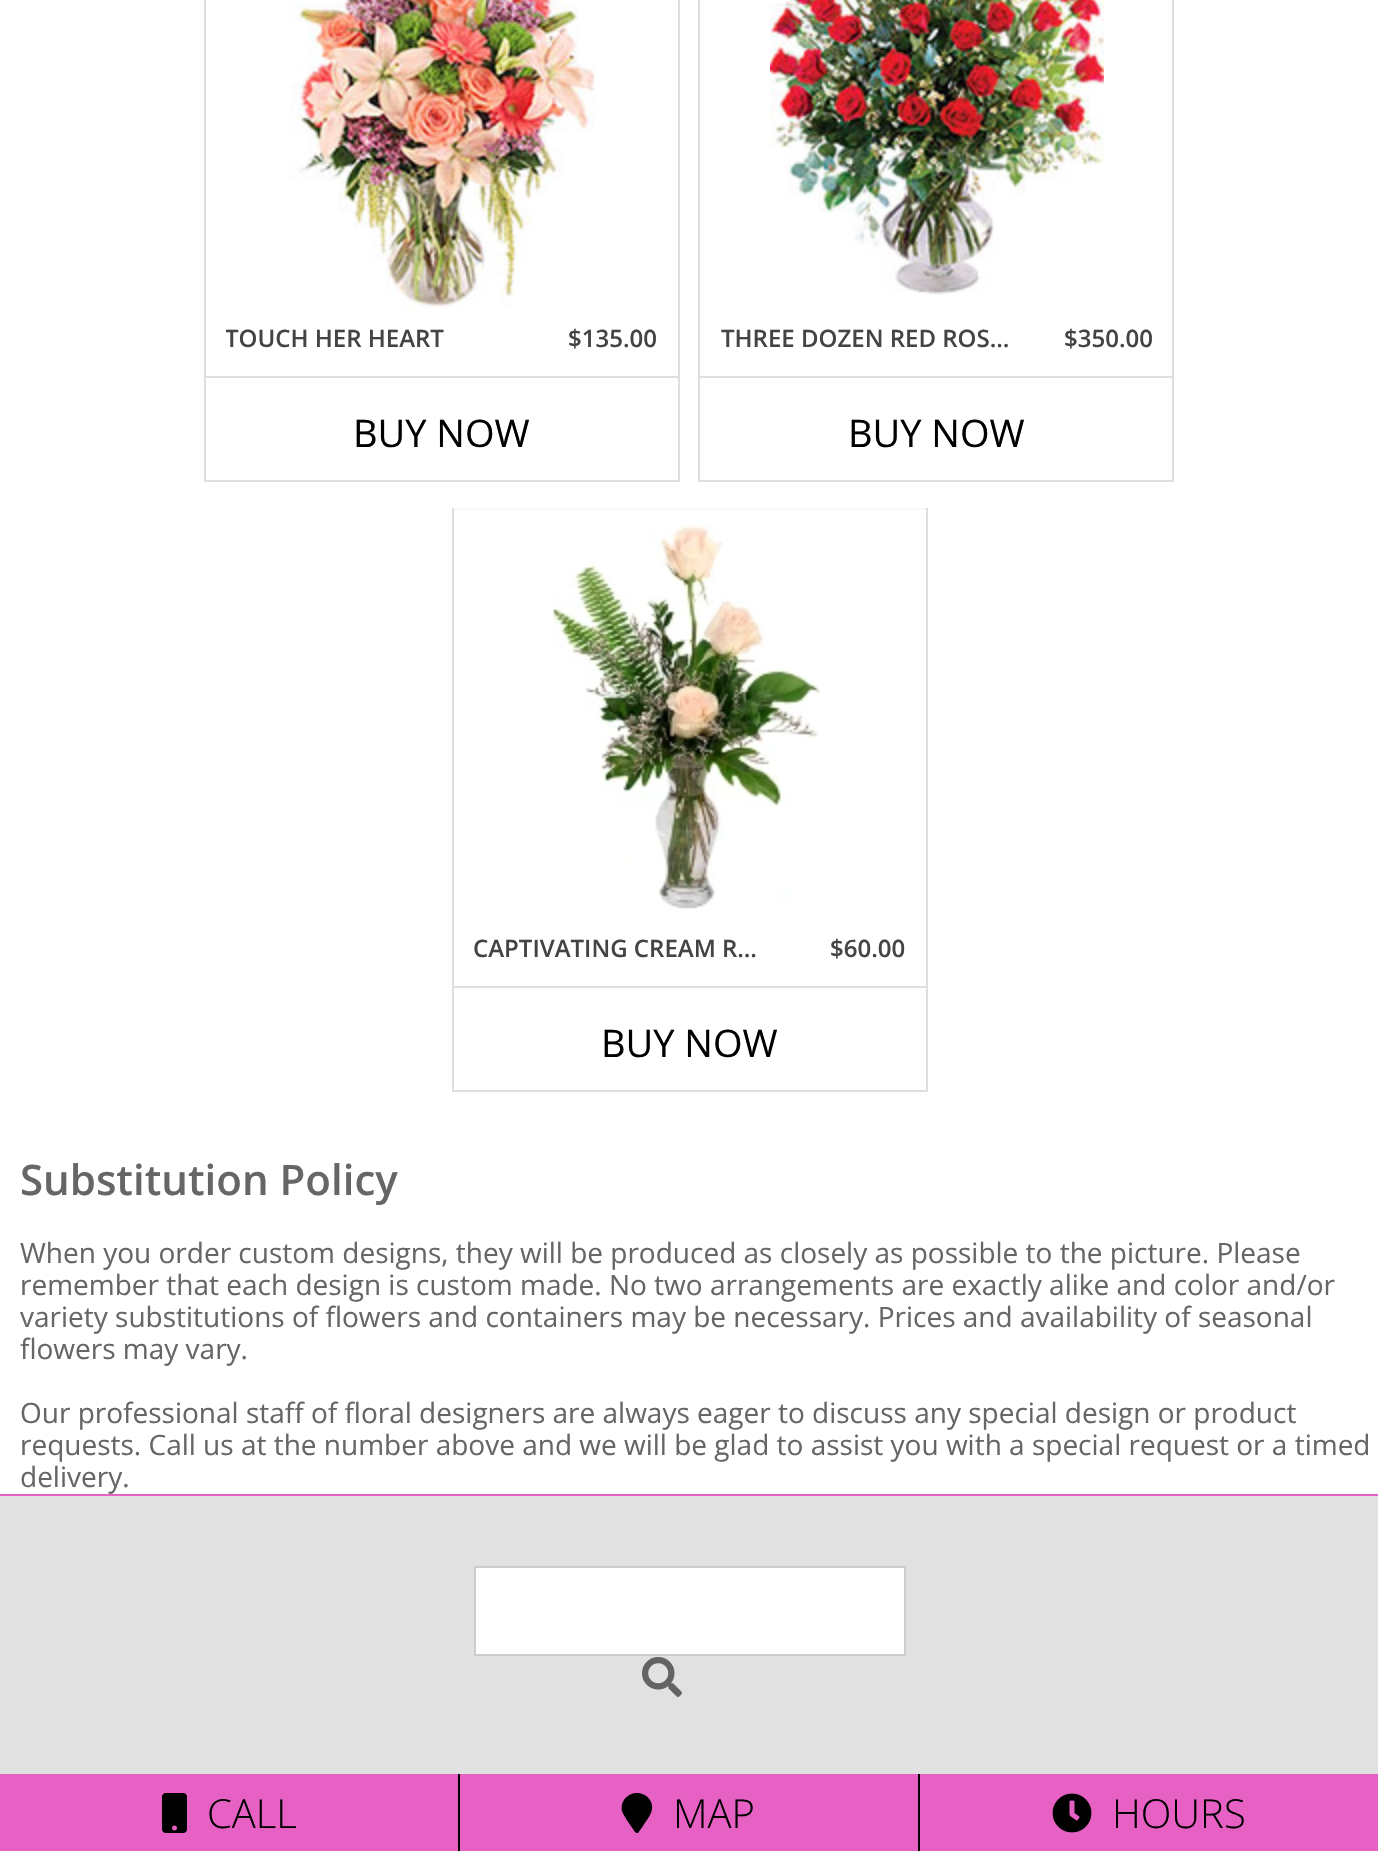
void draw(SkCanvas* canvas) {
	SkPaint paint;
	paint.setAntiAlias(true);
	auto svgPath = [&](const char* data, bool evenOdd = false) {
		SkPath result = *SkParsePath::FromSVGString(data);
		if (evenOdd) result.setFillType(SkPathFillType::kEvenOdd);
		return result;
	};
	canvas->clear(0xffffffff);
	paint.setColor(0xffe2dedd);
	canvas->drawRect(SkRect::MakeXYWH(678, 0, 2, 482), paint);
	canvas->drawRect(SkRect::MakeXYWH(204, 480, 476, 2), paint);
	canvas->drawRect(SkRect::MakeXYWH(204, 0, 2, 482), paint);
	canvas->drawImageRect(SkImages::DeferredFromEncodedData(SkData::MakeFromFileName("img1.png")), SkRect::MakeXYWH(290, 0, 305, 308), SkSamplingOptions());
	canvas->save();
	canvas->clipRect(SkRect::MakeXYWH(226, 322, 288, 34));
	SkFont f1(fontMgr->matchFamilyStyle("Open Sans", SkFontStyle(600, SkFontStyle::kNormal_Width, SkFontStyle::kUpright_Slant)), 24);
	f1.setSubpixel(true);
	paint.setColor(0xff444444);
	canvas->drawString("TOUCH HER HEART", 225, 347, f1, paint);
	canvas->restore();
	canvas->drawString("$135.00", 568, 347, f1, paint);
	paint.setColor(0xffe2dedd);
	canvas->drawRect(SkRect::MakeXYWH(206, 376, 472, 2), paint);
	SkFont f2(fontMgr->matchFamilyStyle("Open Sans", SkFontStyle::Normal()), 38);
	f2.setSubpixel(true);
	paint.setColor(0xff000000);
	canvas->drawString("BUY NOW", 353, 447, f2, paint);
	paint.setColor(0xffe2dedd);
	canvas->drawRect(SkRect::MakeXYWH(1172, 0, 2, 482), paint);
	canvas->drawRect(SkRect::MakeXYWH(698, 480, 476, 2), paint);
	canvas->drawRect(SkRect::MakeXYWH(698, 0, 2, 482), paint);
	canvas->drawImageRect(SkImages::DeferredFromEncodedData(SkData::MakeFromFileName("img2.png")), SkRect::MakeXYWH(770, 0, 334, 295), SkSamplingOptions());
	paint.setColor(0xff444444);
	canvas->drawString("THREE DOZEN RED ROS…", 721, 347, f1, paint);
	canvas->drawString("$350.00", 1064, 347, f1, paint);
	paint.setColor(0xffe2dedd);
	canvas->drawRect(SkRect::MakeXYWH(700, 376, 472, 2), paint);
	paint.setColor(0xff000000);
	canvas->drawString("BUY NOW", 848, 447, f2, paint);
	paint.setColor(0xfff9f9f9);
	canvas->drawRect(SkRect::MakeXYWH(452, 508, 476, 2), paint);
	paint.setColor(0xffe2dedd);
	canvas->drawRect(SkRect::MakeXYWH(926, 508, 2, 584), paint);
	canvas->drawRect(SkRect::MakeXYWH(452, 1090, 476, 2), paint);
	canvas->drawRect(SkRect::MakeXYWH(452, 508, 2, 584), paint);
	canvas->drawImageRect(SkImages::DeferredFromEncodedData(SkData::MakeFromFileName("img3.png")), SkRect::MakeXYWH(552, 525, 269, 384), SkSamplingOptions());
	paint.setColor(0xff444444);
	canvas->drawString("CAPTIVATING CREAM R…", 473, 957, f1, paint);
	canvas->drawString("$60.00", 830, 957, f1, paint);
	paint.setColor(0xffe2dedd);
	canvas->drawRect(SkRect::MakeXYWH(454, 986, 472, 2), paint);
	paint.setColor(0xff000000);
	canvas->drawString("BUY NOW", 601, 1057, f2, paint);
	SkFont f3(fontMgr->matchFamilyStyle("Open Sans", SkFontStyle(600, SkFontStyle::kNormal_Width, SkFontStyle::kUpright_Slant)), 42);
	f3.setSubpixel(true);
	paint.setColor(0xff666666);
	canvas->drawString("Substitution Policy", 20, 1195, f3, paint);
	SkFont f4(fontMgr->matchFamilyStyle("Open Sans", SkFontStyle::Normal()), 28);
	f4.setSubpixel(true);
	canvas->drawString("When you order custom designs, they will be produced as closely as possible to the picture. Please", 20, 1263, f4, paint);
	canvas->drawString("remember that each design is custom made. No two arrangements are exactly alike and color and/or", 20, 1295, f4, paint);
	canvas->drawString("variety substitutions of flowers and containers may be necessary. Prices and availability of seasonal", 20, 1327, f4, paint);
	canvas->drawString("flowers may vary.", 20, 1359, f4, paint);
	canvas->drawString("Our professional staff of floral designers are always eager to discuss any special design or product", 20, 1423, f4, paint);
	canvas->drawString("requests. Call us at the number above and we will be glad to assist you with a special request or a timed", 20, 1455, f4, paint);
	canvas->drawString("delivery.", 20, 1487, f4, paint);
	paint.setColor(0xffe1e1e1);
	canvas->drawRect(SkRect::MakeXYWH(0, 1496, 1378, 278), paint);
	paint.setColor(0xffe761c4);
	canvas->drawRect(SkRect::MakeXYWH(0, 1494, 1378, 2), paint);
	paint.setColor(0xffffffff);
	canvas->drawRect(SkRect::MakeXYWH(475, 1567, 430, 88), paint);
	paint.setStroke(true);
	paint.setStrokeWidth(2);
	paint.setColor(0xffcccccc);
	canvas->drawRect(SkRect::MakeXYWH(475, 1567, 430, 88), paint);
	canvas->drawImageRect(SkImages::DeferredFromEncodedData(SkData::MakeFromFileName("img4.png")), SkRect::MakeXYWH(642, 1657, 40, 40), SkSamplingOptions());
	paint.setStroke(false);
	paint.setColor(0xffe761c4);
	canvas->drawRect(SkRect::MakeXYWH(0, 1774, 458, 77), paint);
	canvas->drawImageRect(SkImages::DeferredFromEncodedData(SkData::MakeFromFileName("img5.png")), SkRect::MakeXYWH(162, 1793, 25, 40), SkSamplingOptions());
	SkFont f5(fontMgr->matchFamilyStyle("Open Sans", SkFontStyle(300, SkFontStyle::kNormal_Width, SkFontStyle::kUpright_Slant)), 40);
	f5.setSubpixel(true);
	paint.setColor(0xff000000);
	canvas->drawString("CALL", 207, 1828, f5, paint);
	paint.setColor(0xffe761c4);
	canvas->drawRect(SkRect::MakeXYWH(460, 1774, 458, 77), paint);
	paint.setColor(0xff000000);
	canvas->drawRect(SkRect::MakeXYWH(458, 1774, 2, 77), paint);
	canvas->drawPath(svgPath("M635 1832C632 1827 624 1817 622 1811C619 1795 640 1786 650 1800C656 1810 648 1818 643 1826L638 1833C637 1833 636 1833 635 1832Z"), paint);
	canvas->drawString("MAP", 673, 1828, f5, paint);
	paint.setColor(0xffe761c4);
	canvas->drawRect(SkRect::MakeXYWH(920, 1774, 458, 77), paint);
	paint.setColor(0xff000000);
	canvas->drawRect(SkRect::MakeXYWH(918, 1774, 2, 77), paint);
	canvas->drawImageRect(SkImages::DeferredFromEncodedData(SkData::MakeFromFileName("img6.png")), SkRect::MakeXYWH(1052, 1793, 40, 40), SkSamplingOptions());
	canvas->drawString("HOURS", 1112, 1828, f5, paint);
}
